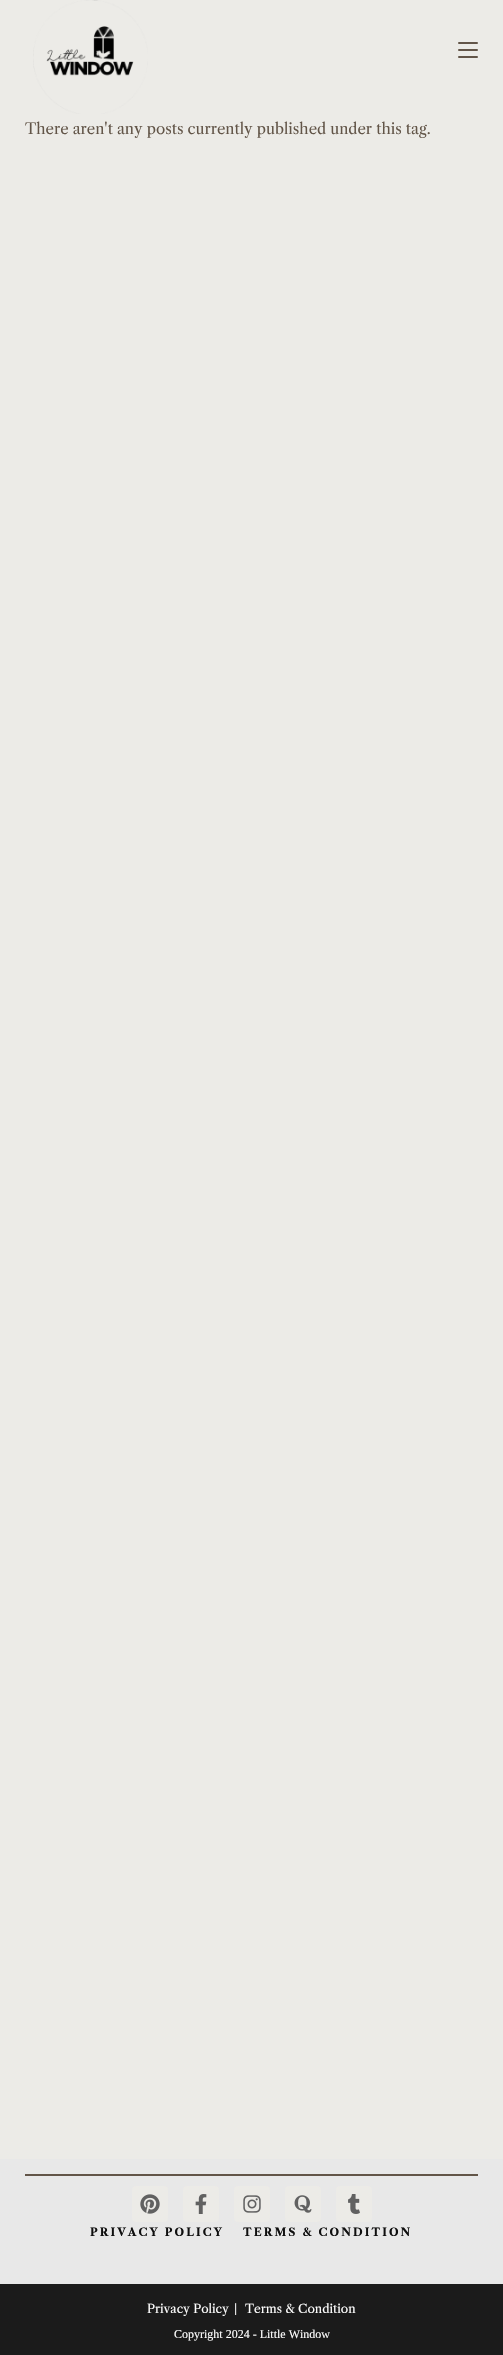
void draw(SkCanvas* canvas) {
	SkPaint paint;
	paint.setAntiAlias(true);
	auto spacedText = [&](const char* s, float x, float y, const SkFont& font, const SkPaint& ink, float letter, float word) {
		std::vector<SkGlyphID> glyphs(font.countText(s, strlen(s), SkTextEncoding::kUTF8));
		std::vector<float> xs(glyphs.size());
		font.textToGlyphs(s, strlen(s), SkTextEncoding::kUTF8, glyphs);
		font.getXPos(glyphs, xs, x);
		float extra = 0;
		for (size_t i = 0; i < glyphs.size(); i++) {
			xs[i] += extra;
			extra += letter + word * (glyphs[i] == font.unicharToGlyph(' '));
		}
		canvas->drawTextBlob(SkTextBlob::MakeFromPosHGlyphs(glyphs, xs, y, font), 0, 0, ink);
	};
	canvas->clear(0xffecebe7);
	canvas->drawImageRect(SkImages::DeferredFromEncodedData(SkData::MakeFromFileName("img1.png")), SkRect::MakeXYWH(33, 0, 115, 114), SkSamplingOptions());
	paint.setColor(0xff625548);
	canvas->drawRoundRect(SkRect::MakeXYWH(458, 42, 20, 2), 1, 1, paint);
	canvas->drawRoundRect(SkRect::MakeXYWH(458, 49, 20, 2), 1, 1, paint);
	canvas->drawRoundRect(SkRect::MakeXYWH(458, 56, 20, 2), 1, 1, paint);
	SkFont f1(fontMgr->matchFamilyStyle("Libre Caslon Text", SkFontStyle::Normal()), 15);
	f1.setSubpixel(true);
	canvas->drawString("There aren't any posts currently published under this tag.", 25, 134, f1, paint);
	paint.setColor(0xffe8e8e8);
	canvas->drawRect(SkRect::MakeXYWH(0, 2159, 503, 125), paint);
	paint.setColor(0xff625548);
	canvas->drawRect(SkRect::MakeXYWH(25, 2174, 453, 2), paint);
	paint.setColor(0xffecebe7);
	canvas->drawRoundRect(SkRect::MakeXYWH(132, 2186, 36, 36), 4, 4, paint);
	canvas->drawImageRect(SkImages::DeferredFromEncodedData(SkData::MakeFromFileName("img2.png")), SkRect::MakeXYWH(140, 2194, 20, 20), SkSamplingOptions());
	canvas->drawRoundRect(SkRect::MakeXYWH(183, 2186, 36, 36), 4, 4, paint);
	canvas->drawImageRect(SkImages::DeferredFromEncodedData(SkData::MakeFromFileName("img3.png")), SkRect::MakeXYWH(195, 2194, 12, 20), SkSamplingOptions());
	canvas->drawRoundRect(SkRect::MakeXYWH(234, 2186, 36, 36), 4, 4, paint);
	canvas->drawImageRect(SkImages::DeferredFromEncodedData(SkData::MakeFromFileName("img4.png")), SkRect::MakeXYWH(243, 2195, 18, 18), SkSamplingOptions());
	canvas->drawRoundRect(SkRect::MakeXYWH(285, 2186, 36, 36), 4, 4, paint);
	canvas->drawImageRect(SkImages::DeferredFromEncodedData(SkData::MakeFromFileName("img5.png")), SkRect::MakeXYWH(294, 2195, 18, 18), SkSamplingOptions());
	canvas->drawRoundRect(SkRect::MakeXYWH(336, 2186, 36, 36), 4, 4, paint);
	canvas->drawImageRect(SkImages::DeferredFromEncodedData(SkData::MakeFromFileName("img6.png")), SkRect::MakeXYWH(348, 2194, 12, 20), SkSamplingOptions());
	SkFont f2(fontMgr->matchFamilyStyle("Libre Caslon Text", SkFontStyle::Bold()), 11);
	f2.setSubpixel(true);
	paint.setColor(0xff0f0f0f);
	spacedText("PRIVACY POLICY", 90, 2236, f2, paint, 2.1, 0);
	spacedText("TERMS & CONDITION", 243, 2236, f2, paint, 2.1, 0);
	paint.setColor(0xff1b1b1b);
	canvas->drawRect(SkRect::MakeXYWH(0, 2284, 503, 71), paint);
	SkFont f3(fontMgr->matchFamilyStyle("Libre Caslon Text", SkFontStyle::Normal()), 12);
	f3.setSubpixel(true);
	paint.setColor(0xffffffff);
	canvas->drawString("Privacy Policy", 147, 2313, f3, paint);
	canvas->drawString("|", 234, 2313, f3, paint);
	canvas->drawString("Terms & Condition", 245, 2313, f3, paint);
	SkFont f4(fontMgr->matchFamilyStyle("Liberation Serif", SkFontStyle::Normal()), 12);
	f4.setSubpixel(true);
	canvas->drawString("Copyright 2024 - Little Window", 174, 2338, f4, paint);
}
